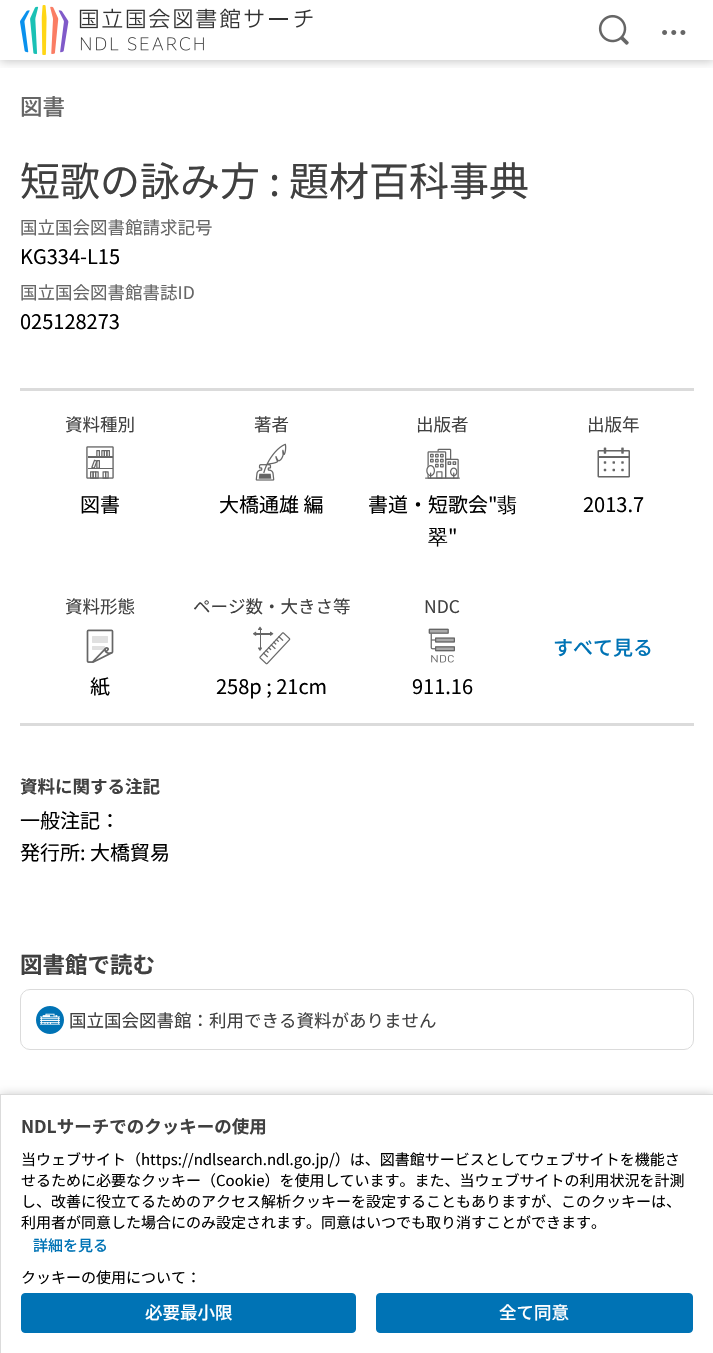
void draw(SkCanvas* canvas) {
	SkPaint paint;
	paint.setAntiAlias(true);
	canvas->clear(0xffffffff);
	canvas->save();
	canvas->clipRect(SkRect::MakeXYWH(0, 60, 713, 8));
	paint.setColor(0x3d000000);
	paint.setMaskFilter(SkMaskFilter::MakeBlur(kNormal_SkBlurStyle, 5));
	canvas->drawRect(SkRect::MakeXYWH(0, 1, 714, 60), paint);
	paint.setMaskFilter(nullptr);
	canvas->restore();
	canvas->drawImageRect(SkImages::DeferredFromEncodedData(SkData::MakeFromFileName("img1.png")), SkRect::MakeXYWH(20, 5, 293, 50), SkSamplingOptions());
	canvas->drawImageRect(SkImages::DeferredFromEncodedData(SkData::MakeFromFileName("img2.png")), SkRect::MakeXYWH(598, 14, 31, 31), SkSamplingOptions());
	canvas->drawImageRect(SkImages::DeferredFromEncodedData(SkData::MakeFromFileName("img3.png")), SkRect::MakeXYWH(662, 30, 24, 5), SkSamplingOptions());
	SkFont f1(fontMgr->matchFamilyStyle("Noto Sans JP", SkFontStyle(500, SkFontStyle::kNormal_Width, SkFontStyle::kUpright_Slant)), 22.5);
	f1.setSubpixel(true);
	paint.setColor(0xff666666);
	canvas->drawString("図書", 20, 115, f1, paint);
	SkFont f2(fontMgr->matchFamilyStyle("Noto Sans JP", SkFontStyle::Normal()), 40);
	f2.setSubpixel(true);
	paint.setColor(0xff404040);
	canvas->drawString("短歌の詠み方 : 題材百科事典", 20, 196, f2, paint);
	SkFont f3(fontMgr->matchFamilyStyle("Noto Sans JP", SkFontStyle::Normal()), 17.5);
	f3.setSubpixel(true);
	paint.setColor(0xff666666);
	canvas->drawString("国立国会図書館請求記号", 20, 234, f3, paint);
	SkFont f4(fontMgr->matchFamilyStyle("Noto Sans JP", SkFontStyle::Normal()), 20);
	f4.setSubpixel(true);
	paint.setColor(0xff000000);
	canvas->drawString("KG334-L15", 20, 264, f4, paint);
	paint.setColor(0xff666666);
	canvas->drawString("国立国会図書館書誌ID", 20, 299, f3, paint);
	paint.setColor(0xff000000);
	canvas->drawString("025128273", 20, 329, f4, paint);
	paint.setColor(0xffdbdbdb);
	canvas->drawRect(SkRect::MakeXYWH(20, 388, 674, 3), paint);
	paint.setColor(0xff404040);
	canvas->drawString("資料種別", 65, 431, f3, paint);
	canvas->drawImageRect(SkImages::DeferredFromEncodedData(SkData::MakeFromFileName("img4.png")), SkRect::MakeXYWH(86, 446, 28, 33), SkSamplingOptions());
	paint.setColor(0xff000000);
	canvas->drawString("図書", 80, 512, f4, paint);
	paint.setColor(0xff404040);
	canvas->drawString("著者", 254, 431, f3, paint);
	canvas->drawImageRect(SkImages::DeferredFromEncodedData(SkData::MakeFromFileName("img5.png")), SkRect::MakeXYWH(255, 443, 32, 38), SkSamplingOptions());
	paint.setColor(0xff000000);
	canvas->drawString("大橋通雄 編", 219, 512, f4, paint);
	paint.setColor(0xff404040);
	canvas->drawString("出版者", 416, 431, f3, paint);
	canvas->drawImageRect(SkImages::DeferredFromEncodedData(SkData::MakeFromFileName("img6.png")), SkRect::MakeXYWH(425, 448, 35, 31), SkSamplingOptions());
	paint.setColor(0xff000000);
	canvas->drawString("書道・短歌会\"", 368, 512, f4, paint);
	SkFont f5(fontMgr->matchFamilyStyle("WenQuanYi Zen Hei", SkFontStyle(500, SkFontStyle::kNormal_Width, SkFontStyle::kUpright_Slant)), 20);
	f5.setSubpixel(true);
	canvas->drawString("翡", 497, 512, f5, paint);
	canvas->drawString("翠", 428, 544, f5, paint);
	canvas->drawString("\"", 448, 544, f4, paint);
	paint.setColor(0xff404040);
	canvas->drawString("出版年", 587, 431, f3, paint);
	canvas->drawImageRect(SkImages::DeferredFromEncodedData(SkData::MakeFromFileName("img7.png")), SkRect::MakeXYWH(597, 447, 33, 31), SkSamplingOptions());
	paint.setColor(0xff000000);
	canvas->drawString("2013.7", 583, 512, f4, paint);
	paint.setColor(0xff404040);
	canvas->drawString("資料形態", 65, 613, f3, paint);
	canvas->drawImageRect(SkImages::DeferredFromEncodedData(SkData::MakeFromFileName("img8.png")), SkRect::MakeXYWH(86, 629, 28, 34), SkSamplingOptions());
	paint.setColor(0xff000000);
	canvas->drawString("紙", 90, 694, f4, paint);
	paint.setColor(0xff404040);
	canvas->drawString("ページ数・大きさ等", 193, 613, f3, paint);
	canvas->drawImageRect(SkImages::DeferredFromEncodedData(SkData::MakeFromFileName("img9.png")), SkRect::MakeXYWH(253, 626, 38, 39), SkSamplingOptions());
	paint.setColor(0xff000000);
	canvas->drawString("258p ; 21cm", 216, 694, f4, paint);
	paint.setColor(0xff404040);
	canvas->drawString("NDC", 424, 613, f3, paint);
	canvas->drawImageRect(SkImages::DeferredFromEncodedData(SkData::MakeFromFileName("img10.png")), SkRect::MakeXYWH(428, 628, 27, 35), SkSamplingOptions());
	paint.setColor(0xff000000);
	canvas->drawString("911.16", 412, 694, f4, paint);
	SkFont f6(fontMgr->matchFamilyStyle("Noto Sans JP", SkFontStyle(500, SkFontStyle::kNormal_Width, SkFontStyle::kUpright_Slant)), 20);
	f6.setSubpixel(true);
	paint.setColor(0xff0073b5);
	canvas->drawString("すべて見る", 553, 655, f6, paint);
	paint.setColor(0xffdbdbdb);
	canvas->drawRect(SkRect::MakeXYWH(20, 723, 674, 3), paint);
	SkFont f7(fontMgr->matchFamilyStyle("Noto Sans JP", SkFontStyle::Bold()), 17.5);
	f7.setSubpixel(true);
	paint.setColor(0xff404040);
	canvas->drawString("資料に関する注記", 20, 793, f7, paint);
	paint.setColor(0xff000000);
	canvas->drawString("一般注記：", 20, 828, f4, paint);
	canvas->drawString("発行所: 大橋貿易", 20, 860, f4, paint);
	SkFont f8(fontMgr->matchFamilyStyle("Noto Sans JP", SkFontStyle::Bold()), 22.5);
	f8.setSubpixel(true);
	paint.setColor(0xff404040);
	canvas->drawString("図書館で読む", 20, 973, f8, paint);
	paint.setStroke(true);
	paint.setStrokeWidth(1);
	paint.setColor(0xffdbdbdb);
	canvas->drawRoundRect(SkRect::MakeXYWH(20.5, 989.5, 673, 60), 9.5, 9.5, paint);
	canvas->drawImageRect(SkImages::DeferredFromEncodedData(SkData::MakeFromFileName("img11.png")), SkRect::MakeXYWH(36, 1006, 28, 28), SkSamplingOptions());
	paint.setStroke(false);
	paint.setColor(0xff404040);
	canvas->drawString("国立国会図書館：利用できる資料がありません", 69, 1027, f3, paint);
	paint.setColor(0x3d000000);
	paint.setMaskFilter(SkMaskFilter::MakeBlur(kNormal_SkBlurStyle, 5));
	canvas->drawRect(SkRect::MakeXYWH(0, 1095, 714, 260), paint);
	paint.setMaskFilter(nullptr);
	paint.setColor(0xffffffff);
	canvas->drawRect(SkRect::MakeXYWH(0.5, 1094.5, 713, 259), paint);
	paint.setStroke(true);
	paint.setColor(0xffdbdbdb);
	canvas->drawRect(SkRect::MakeXYWH(0.5, 1094.5, 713, 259), paint);
	paint.setStroke(false);
	paint.setColor(0xff404040);
	canvas->drawString("NDLサーチでのクッキーの使用", 21, 1133, f7, paint);
	SkFont f9(fontMgr->matchFamilyStyle("Noto Sans JP", SkFontStyle::Normal()), 15);
	f9.setSubpixel(true);
	paint.setColor(0xff000000);
	canvas->drawString("当ウェブサイト（https://ndlsearch.ndl.go.jp/）は、図書館サービスとしてウェブサイトを機能さ", 21, 1165, f9, paint);
	canvas->drawString("せるために必要なクッキー（Cookie）を使用しています。また、当ウェブサイトの利用状況を計測", 21, 1186, f9, paint);
	canvas->drawString("し、改善に役立てるためのアクセス解析クッキーを設定することもありますが、このクッキーは、", 21, 1207, f9, paint);
	canvas->drawString("利用者が同意した場合にのみ設定されます。同意はいつでも取り消すことができます。", 21, 1228, f9, paint);
	SkFont f10(fontMgr->matchFamilyStyle("Noto Sans JP", SkFontStyle(500, SkFontStyle::kNormal_Width, SkFontStyle::kUpright_Slant)), 15);
	f10.setSubpixel(true);
	paint.setColor(0xff0073b5);
	canvas->drawString("詳細を見る", 33, 1251, f10, paint);
	paint.setColor(0xff000000);
	canvas->drawString("クッキーの使用について：", 21, 1283, f9, paint);
	paint.setColor(0xff0073b5);
	canvas->drawRoundRect(SkRect::MakeXYWH(21.5, 1293.5, 334, 39), 3.5, 3.5, paint);
	paint.setStroke(true);
	canvas->drawRoundRect(SkRect::MakeXYWH(21.5, 1293.5, 334, 39), 3.5, 3.5, paint);
	SkFont f11(fontMgr->matchFamilyStyle("Noto Sans JP", SkFontStyle(500, SkFontStyle::kNormal_Width, SkFontStyle::kUpright_Slant)), 17.5);
	f11.setSubpixel(true);
	paint.setStroke(false);
	paint.setColor(0xffffffff);
	canvas->drawString("必要最小限", 145, 1319, f11, paint);
	paint.setColor(0xff0073b5);
	canvas->drawRoundRect(SkRect::MakeXYWH(376.5, 1293.5, 316, 39), 3.5, 3.5, paint);
	paint.setStroke(true);
	canvas->drawRoundRect(SkRect::MakeXYWH(376.5, 1293.5, 316, 39), 3.5, 3.5, paint);
	paint.setStroke(false);
	paint.setColor(0xffffffff);
	canvas->drawString("全て同意", 499, 1319, f11, paint);
}
